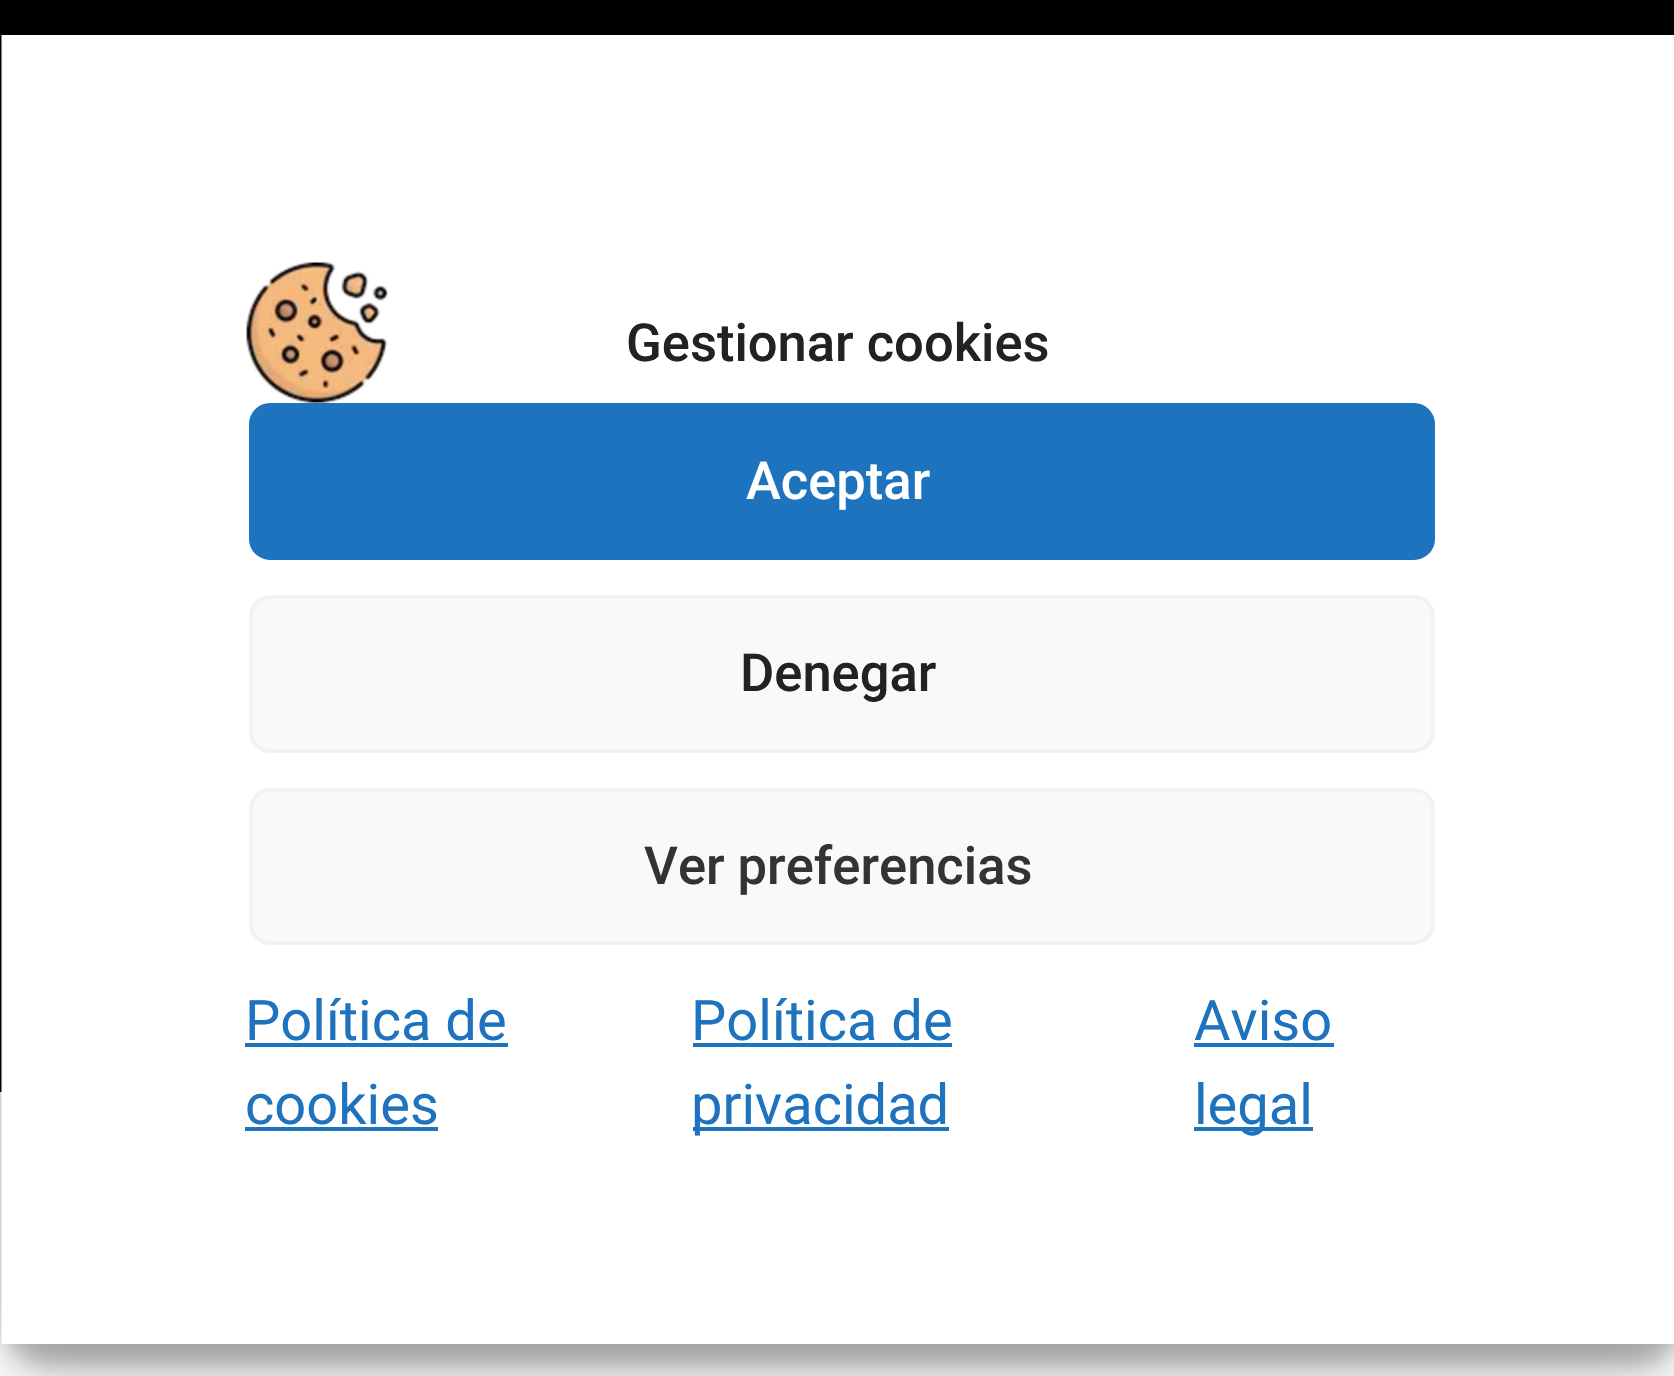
void draw(SkCanvas* canvas) {
	SkPaint paint;
	paint.setAntiAlias(true);
	auto svgPath = [&](const char* data, bool evenOdd = false) {
		SkPath result = *SkParsePath::FromSVGString(data);
		if (evenOdd) result.setFillType(SkPathFillType::kEvenOdd);
		return result;
	};
	canvas->clear(0xff000000);
	paint.setColor(0xffffffff);
	canvas->drawRect(SkRect::MakeXYWH(0, 1092, 1674, 284), paint);
	paint.setColor(0x3b000000);
	paint.setMaskFilter(SkMaskFilter::MakeBlur(kNormal_SkBlurStyle, 10.5));
	canvas->drawRoundRect(SkRect::MakeXYWH(4, 56, 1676, 1309), 42, 42, paint);
	paint.setMaskFilter(nullptr);
	paint.setColor(0x30000000);
	paint.setMaskFilter(SkMaskFilter::MakeBlur(kNormal_SkBlurStyle, 35));
	canvas->drawRoundRect(SkRect::MakeXYWH(4, 70, 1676, 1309), 42, 42, paint);
	paint.setMaskFilter(nullptr);
	paint.setColor(0xffffffff);
	canvas->drawRect(SkRect::MakeXYWH(176, 210, 1328, 959), paint);
	paint.setStroke(true);
	paint.setStrokeWidth(175);
	canvas->drawPath(svgPath("M89 122.5H1591V1256.5H89Z"), paint);
	canvas->drawImageRect(SkImages::DeferredFromEncodedData(SkData::MakeFromFileName("img1.png")), SkRect::MakeXYWH(246, 262, 142, 141), SkSamplingOptions());
	SkFont f1(fontMgr->matchFamilyStyle("Roboto", SkFontStyle(500, SkFontStyle::kNormal_Width, SkFontStyle::kUpright_Slant)), 52.5);
	f1.setSubpixel(true);
	paint.setStroke(false);
	paint.setColor(0xff222222);
	canvas->drawString("Gestionar cookies", 626, 361, f1, paint);
	paint.setColor(0xff1e73be);
	canvas->drawRoundRect(SkRect::MakeXYWH(251, 405, 1182, 153), 19, 19, paint);
	paint.setStroke(true);
	paint.setStrokeWidth(4);
	canvas->drawRoundRect(SkRect::MakeXYWH(251, 405, 1182, 153), 19, 19, paint);
	paint.setStroke(false);
	paint.setColor(0xffffffff);
	canvas->drawString("Aceptar", 746, 499, f1, paint);
	paint.setColor(0xfff9f9f9);
	canvas->drawRoundRect(SkRect::MakeXYWH(251, 597, 1182, 154), 19, 19, paint);
	paint.setStroke(true);
	paint.setColor(0xfff2f2f2);
	canvas->drawRoundRect(SkRect::MakeXYWH(251, 597, 1182, 154), 19, 19, paint);
	paint.setStroke(false);
	paint.setColor(0xff222222);
	canvas->drawString("Denegar", 740, 691, f1, paint);
	paint.setColor(0xfff9f9f9);
	canvas->drawRoundRect(SkRect::MakeXYWH(251, 790, 1182, 153), 19, 19, paint);
	paint.setStroke(true);
	paint.setColor(0xfff2f2f2);
	canvas->drawRoundRect(SkRect::MakeXYWH(251, 790, 1182, 153), 19, 19, paint);
	paint.setStroke(false);
	paint.setColor(0xff333333);
	canvas->drawString("Ver preferencias", 644, 884, f1, paint);
	SkFont f2(fontMgr->matchFamilyStyle("Roboto", SkFontStyle::Normal()), 56);
	f2.setSubpixel(true);
	paint.setColor(0xff1e73be);
	canvas->drawString("Política de", 245, 1040, f2, paint);
	canvas->drawRect(SkRect::MakeXYWH(245, 1043, 263, 4), paint);
	canvas->drawString("cookies", 245, 1124, f2, paint);
	canvas->drawRect(SkRect::MakeXYWH(245, 1127, 193, 4), paint);
	canvas->drawString("Política de", 691, 1040, f2, paint);
	canvas->drawRect(SkRect::MakeXYWH(693, 1043, 259, 4), paint);
	canvas->drawRect(SkRect::MakeXYWH(693, 1127, 256, 4), paint);
	canvas->drawString("privacidad", 691, 1124, f2, paint);
	canvas->drawString("Aviso", 1194, 1040, f2, paint);
	canvas->drawRect(SkRect::MakeXYWH(1194, 1043, 140, 4), paint);
	canvas->drawRect(SkRect::MakeXYWH(1194, 1127, 119, 4), paint);
	canvas->drawString("legal", 1194, 1124, f2, paint);
}
